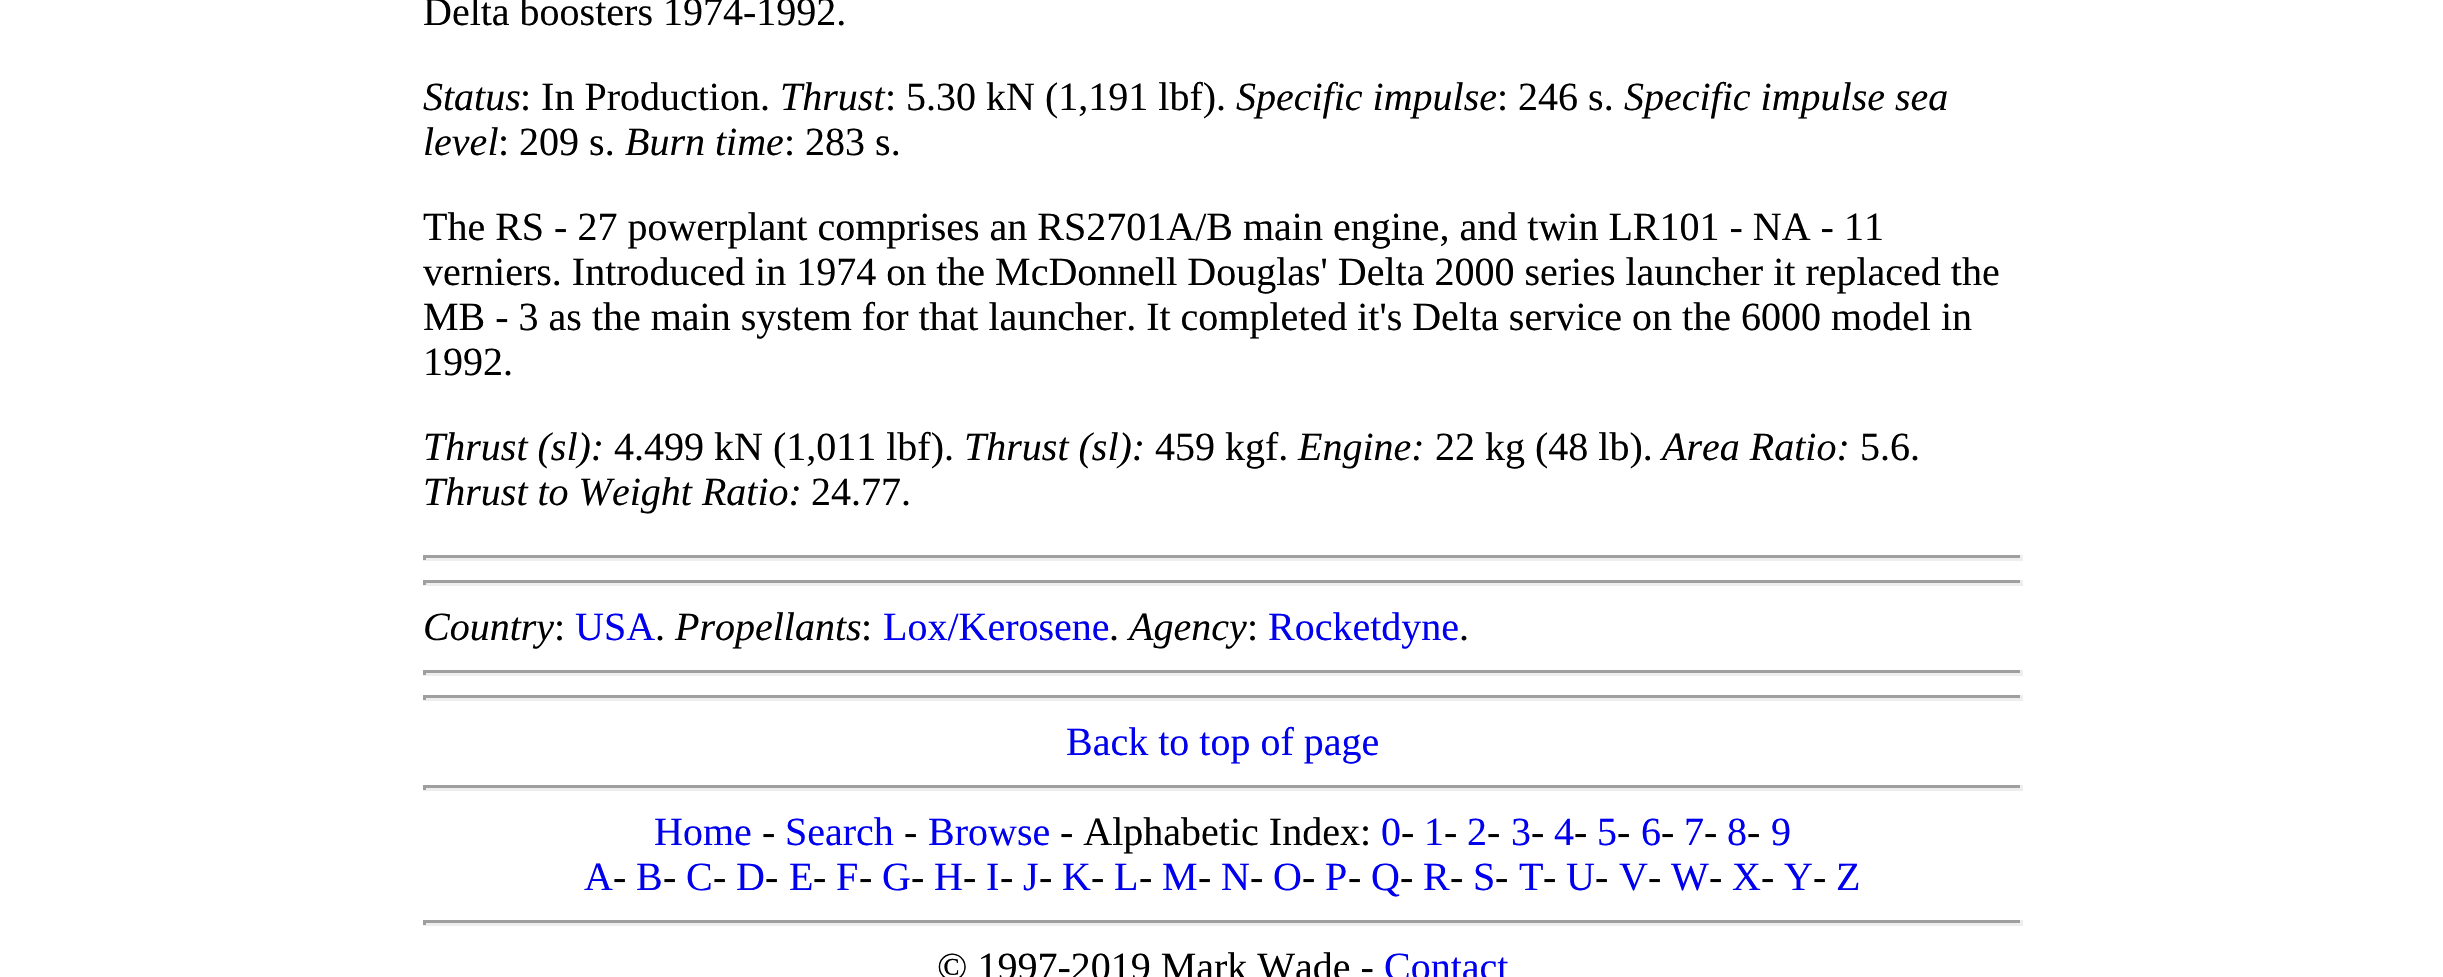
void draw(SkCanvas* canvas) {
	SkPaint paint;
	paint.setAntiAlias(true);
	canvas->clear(0xffffffff);
	SkFont f1(fontMgr->matchFamilyStyle("Liberation Serif", SkFontStyle::Normal()), 40);
	f1.setSubpixel(true);
	paint.setColor(0xff000000);
	canvas->drawString("Delta boosters 1974-1992.", 423, 25, f1, paint);
	SkFont f2(fontMgr->matchFamilyStyle("Liberation Serif", SkFontStyle::Italic()), 40);
	f2.setSubpixel(true);
	canvas->drawString("Status", 423, 110, f2, paint);
	canvas->drawString(": In Production.", 520, 110, f1, paint);
	canvas->drawString("Thrust", 780, 110, f2, paint);
	canvas->drawString(": 5.30 kN (1,191 lbf).", 885, 110, f1, paint);
	canvas->drawString("Specific impulse", 1236, 110, f2, paint);
	canvas->drawString(": 246 s.", 1497, 110, f1, paint);
	canvas->drawString("Specific impulse sea", 1624, 110, f2, paint);
	canvas->drawString("level", 423, 155, f2, paint);
	canvas->drawString(": 209 s.", 498, 155, f1, paint);
	canvas->drawString("Burn time", 625, 155, f2, paint);
	canvas->drawString(": 283 s.", 784, 155, f1, paint);
	canvas->drawString("The RS - 27 powerplant comprises an RS2701A/B main engine, and twin LR101 - NA - 11", 423, 240, f1, paint);
	canvas->drawString("verniers. Introduced in 1974 on the McDonnell Douglas' Delta 2000 series launcher it replaced the", 423, 285, f1, paint);
	canvas->drawString("MB - 3 as the main system for that launcher. It completed it's Delta service on the 6000 model in", 423, 330, f1, paint);
	canvas->drawString("1992.", 423, 375, f1, paint);
	canvas->drawString("Thrust (sl):", 423, 460, f2, paint);
	canvas->drawString("4.499 kN (1,011 lbf).", 614, 460, f1, paint);
	canvas->drawString("Thrust (sl):", 964, 460, f2, paint);
	canvas->drawString("459 kgf.", 1155, 460, f1, paint);
	canvas->drawString("Engine:", 1298, 460, f2, paint);
	canvas->drawString("22 kg (48 lb).", 1435, 460, f1, paint);
	canvas->drawString("Area Ratio:", 1662, 460, f2, paint);
	canvas->drawString("5.6.", 1860, 460, f1, paint);
	canvas->drawString("Thrust to Weight Ratio:", 423, 505, f2, paint);
	canvas->drawString("24.77.", 811, 505, f1, paint);
	paint.setColor(0xff9f9f9f);
	canvas->drawRect(SkRect::MakeXYWH(423, 555, 1600, 3), paint);
	paint.setColor(0xffeeeeee);
	canvas->drawRect(SkRect::MakeXYWH(2020, 555, 3, 5), paint);
	canvas->drawRect(SkRect::MakeXYWH(423, 558, 1600, 3), paint);
	paint.setColor(0xff9f9f9f);
	canvas->drawRect(SkRect::MakeXYWH(423, 555, 3, 5), paint);
	canvas->drawRect(SkRect::MakeXYWH(423, 580, 1600, 3), paint);
	paint.setColor(0xffeeeeee);
	canvas->drawRect(SkRect::MakeXYWH(2020, 580, 3, 5), paint);
	canvas->drawRect(SkRect::MakeXYWH(423, 583, 1600, 3), paint);
	paint.setColor(0xff9f9f9f);
	canvas->drawRect(SkRect::MakeXYWH(423, 580, 3, 5), paint);
	paint.setColor(0xff000000);
	canvas->drawString("Country", 423, 640, f2, paint);
	canvas->drawString(":", 554, 640, f1, paint);
	paint.setColor(0xff0000ee);
	canvas->drawString("USA", 575, 640, f1, paint);
	paint.setColor(0xff000000);
	canvas->drawString(".", 655, 640, f1, paint);
	canvas->drawString("Propellants", 675, 640, f2, paint);
	canvas->drawString(":", 861, 640, f1, paint);
	paint.setColor(0xff0000ee);
	canvas->drawString("Lox/Kerosene", 883, 640, f1, paint);
	paint.setColor(0xff000000);
	canvas->drawString(".", 1109, 640, f1, paint);
	canvas->drawString("Agency", 1129, 640, f2, paint);
	canvas->drawString(":", 1247, 640, f1, paint);
	paint.setColor(0xff0000ee);
	canvas->drawString("Rocketdyne", 1268, 640, f1, paint);
	paint.setColor(0xff000000);
	canvas->drawString(".", 1459, 640, f1, paint);
	paint.setColor(0xff9f9f9f);
	canvas->drawRect(SkRect::MakeXYWH(423, 670, 1600, 3), paint);
	paint.setColor(0xffeeeeee);
	canvas->drawRect(SkRect::MakeXYWH(2020, 670, 3, 5), paint);
	canvas->drawRect(SkRect::MakeXYWH(423, 673, 1600, 3), paint);
	paint.setColor(0xff9f9f9f);
	canvas->drawRect(SkRect::MakeXYWH(423, 670, 3, 5), paint);
	canvas->drawRect(SkRect::MakeXYWH(423, 695, 1600, 3), paint);
	paint.setColor(0xffeeeeee);
	canvas->drawRect(SkRect::MakeXYWH(2020, 695, 3, 5), paint);
	canvas->drawRect(SkRect::MakeXYWH(423, 698, 1600, 3), paint);
	paint.setColor(0xff9f9f9f);
	canvas->drawRect(SkRect::MakeXYWH(423, 695, 3, 5), paint);
	paint.setColor(0xff0000ee);
	canvas->drawString("Back to top of page", 1066, 755, f1, paint);
	paint.setColor(0xff9f9f9f);
	canvas->drawRect(SkRect::MakeXYWH(423, 785, 1600, 3), paint);
	paint.setColor(0xffeeeeee);
	canvas->drawRect(SkRect::MakeXYWH(2020, 785, 3, 5), paint);
	canvas->drawRect(SkRect::MakeXYWH(423, 788, 1600, 3), paint);
	paint.setColor(0xff9f9f9f);
	canvas->drawRect(SkRect::MakeXYWH(423, 785, 3, 5), paint);
	paint.setColor(0xff0000ee);
	canvas->drawString("Home", 654, 845, f1, paint);
	paint.setColor(0xff000000);
	canvas->drawString("-", 762, 845, f1, paint);
	paint.setColor(0xff0000ee);
	canvas->drawString("Search", 785, 845, f1, paint);
	paint.setColor(0xff000000);
	canvas->drawString("-", 904, 845, f1, paint);
	paint.setColor(0xff0000ee);
	canvas->drawString("Browse", 928, 845, f1, paint);
	paint.setColor(0xff000000);
	canvas->drawString("- Alphabetic Index:", 1060, 845, f1, paint);
	paint.setColor(0xff0000ee);
	canvas->drawString("0", 1381, 845, f1, paint);
	paint.setColor(0xff000000);
	canvas->drawString("-", 1401, 845, f1, paint);
	paint.setColor(0xff0000ee);
	canvas->drawString("1", 1424, 845, f1, paint);
	paint.setColor(0xff000000);
	canvas->drawString("-", 1444, 845, f1, paint);
	paint.setColor(0xff0000ee);
	canvas->drawString("2", 1467, 845, f1, paint);
	paint.setColor(0xff000000);
	canvas->drawString("-", 1487, 845, f1, paint);
	paint.setColor(0xff0000ee);
	canvas->drawString("3", 1511, 845, f1, paint);
	paint.setColor(0xff000000);
	canvas->drawString("-", 1531, 845, f1, paint);
	paint.setColor(0xff0000ee);
	canvas->drawString("4", 1554, 845, f1, paint);
	paint.setColor(0xff000000);
	canvas->drawString("-", 1574, 845, f1, paint);
	paint.setColor(0xff0000ee);
	canvas->drawString("5", 1597, 845, f1, paint);
	paint.setColor(0xff000000);
	canvas->drawString("-", 1617, 845, f1, paint);
	paint.setColor(0xff0000ee);
	canvas->drawString("6", 1641, 845, f1, paint);
	paint.setColor(0xff000000);
	canvas->drawString("-", 1661, 845, f1, paint);
	paint.setColor(0xff0000ee);
	canvas->drawString("7", 1684, 845, f1, paint);
	paint.setColor(0xff000000);
	canvas->drawString("-", 1704, 845, f1, paint);
	paint.setColor(0xff0000ee);
	canvas->drawString("8", 1727, 845, f1, paint);
	paint.setColor(0xff000000);
	canvas->drawString("-", 1747, 845, f1, paint);
	paint.setColor(0xff0000ee);
	canvas->drawString("9", 1771, 845, f1, paint);
	canvas->drawString("A", 584, 890, f1, paint);
	paint.setColor(0xff000000);
	canvas->drawString("-", 613, 890, f1, paint);
	paint.setColor(0xff0000ee);
	canvas->drawString("B", 636, 890, f1, paint);
	paint.setColor(0xff000000);
	canvas->drawString("-", 663, 890, f1, paint);
	paint.setColor(0xff0000ee);
	canvas->drawString("C", 686, 890, f1, paint);
	paint.setColor(0xff000000);
	canvas->drawString("-", 713, 890, f1, paint);
	paint.setColor(0xff0000ee);
	canvas->drawString("D", 736, 890, f1, paint);
	paint.setColor(0xff000000);
	canvas->drawString("-", 765, 890, f1, paint);
	paint.setColor(0xff0000ee);
	canvas->drawString("E", 789, 890, f1, paint);
	paint.setColor(0xff000000);
	canvas->drawString("-", 813, 890, f1, paint);
	paint.setColor(0xff0000ee);
	canvas->drawString("F", 836, 890, f1, paint);
	paint.setColor(0xff000000);
	canvas->drawString("-", 859, 890, f1, paint);
	paint.setColor(0xff0000ee);
	canvas->drawString("G", 882, 890, f1, paint);
	paint.setColor(0xff000000);
	canvas->drawString("-", 911, 890, f1, paint);
	paint.setColor(0xff0000ee);
	canvas->drawString("H", 934, 890, f1, paint);
	paint.setColor(0xff000000);
	canvas->drawString("-", 963, 890, f1, paint);
	paint.setColor(0xff0000ee);
	canvas->drawString("I", 986, 890, f1, paint);
	paint.setColor(0xff000000);
	canvas->drawString("-", 1000, 890, f1, paint);
	paint.setColor(0xff0000ee);
	canvas->drawString("J", 1023, 890, f1, paint);
	paint.setColor(0xff000000);
	canvas->drawString("-", 1039, 890, f1, paint);
	paint.setColor(0xff0000ee);
	canvas->drawString("K", 1062, 890, f1, paint);
	paint.setColor(0xff000000);
	canvas->drawString("-", 1091, 890, f1, paint);
	paint.setColor(0xff0000ee);
	canvas->drawString("L", 1114, 890, f1, paint);
	paint.setColor(0xff000000);
	canvas->drawString("-", 1139, 890, f1, paint);
	paint.setColor(0xff0000ee);
	canvas->drawString("M", 1162, 890, f1, paint);
	paint.setColor(0xff000000);
	canvas->drawString("-", 1198, 890, f1, paint);
	paint.setColor(0xff0000ee);
	canvas->drawString("N", 1221, 890, f1, paint);
	paint.setColor(0xff000000);
	canvas->drawString("-", 1250, 890, f1, paint);
	paint.setColor(0xff0000ee);
	canvas->drawString("O", 1273, 890, f1, paint);
	paint.setColor(0xff000000);
	canvas->drawString("-", 1302, 890, f1, paint);
	paint.setColor(0xff0000ee);
	canvas->drawString("P", 1325, 890, f1, paint);
	paint.setColor(0xff000000);
	canvas->drawString("-", 1348, 890, f1, paint);
	paint.setColor(0xff0000ee);
	canvas->drawString("Q", 1371, 890, f1, paint);
	paint.setColor(0xff000000);
	canvas->drawString("-", 1400, 890, f1, paint);
	paint.setColor(0xff0000ee);
	canvas->drawString("R", 1423, 890, f1, paint);
	paint.setColor(0xff000000);
	canvas->drawString("-", 1450, 890, f1, paint);
	paint.setColor(0xff0000ee);
	canvas->drawString("S", 1473, 890, f1, paint);
	paint.setColor(0xff000000);
	canvas->drawString("-", 1495, 890, f1, paint);
	paint.setColor(0xff0000ee);
	canvas->drawString("T", 1519, 890, f1, paint);
	paint.setColor(0xff000000);
	canvas->drawString("-", 1543, 890, f1, paint);
	paint.setColor(0xff0000ee);
	canvas->drawString("U", 1566, 890, f1, paint);
	paint.setColor(0xff000000);
	canvas->drawString("-", 1595, 890, f1, paint);
	paint.setColor(0xff0000ee);
	canvas->drawString("V", 1619, 890, f1, paint);
	paint.setColor(0xff000000);
	canvas->drawString("-", 1648, 890, f1, paint);
	paint.setColor(0xff0000ee);
	canvas->drawString("W", 1671, 890, f1, paint);
	paint.setColor(0xff000000);
	canvas->drawString("-", 1709, 890, f1, paint);
	paint.setColor(0xff0000ee);
	canvas->drawString("X", 1732, 890, f1, paint);
	paint.setColor(0xff000000);
	canvas->drawString("-", 1761, 890, f1, paint);
	paint.setColor(0xff0000ee);
	canvas->drawString("Y", 1784, 890, f1, paint);
	paint.setColor(0xff000000);
	canvas->drawString("-", 1813, 890, f1, paint);
	paint.setColor(0xff0000ee);
	canvas->drawString("Z", 1836, 890, f1, paint);
	paint.setColor(0xff9f9f9f);
	canvas->drawRect(SkRect::MakeXYWH(423, 920, 1600, 3), paint);
	paint.setColor(0xffeeeeee);
	canvas->drawRect(SkRect::MakeXYWH(2020, 920, 3, 5), paint);
	canvas->drawRect(SkRect::MakeXYWH(423, 923, 1600, 3), paint);
	paint.setColor(0xff9f9f9f);
	canvas->drawRect(SkRect::MakeXYWH(423, 920, 3, 5), paint);
	paint.setColor(0xff000000);
	canvas->drawString("© 1997-2019 Mark Wade -", 937, 980, f1, paint);
	paint.setColor(0xff0000ee);
	canvas->drawString("Contact", 1384, 980, f1, paint);
}
